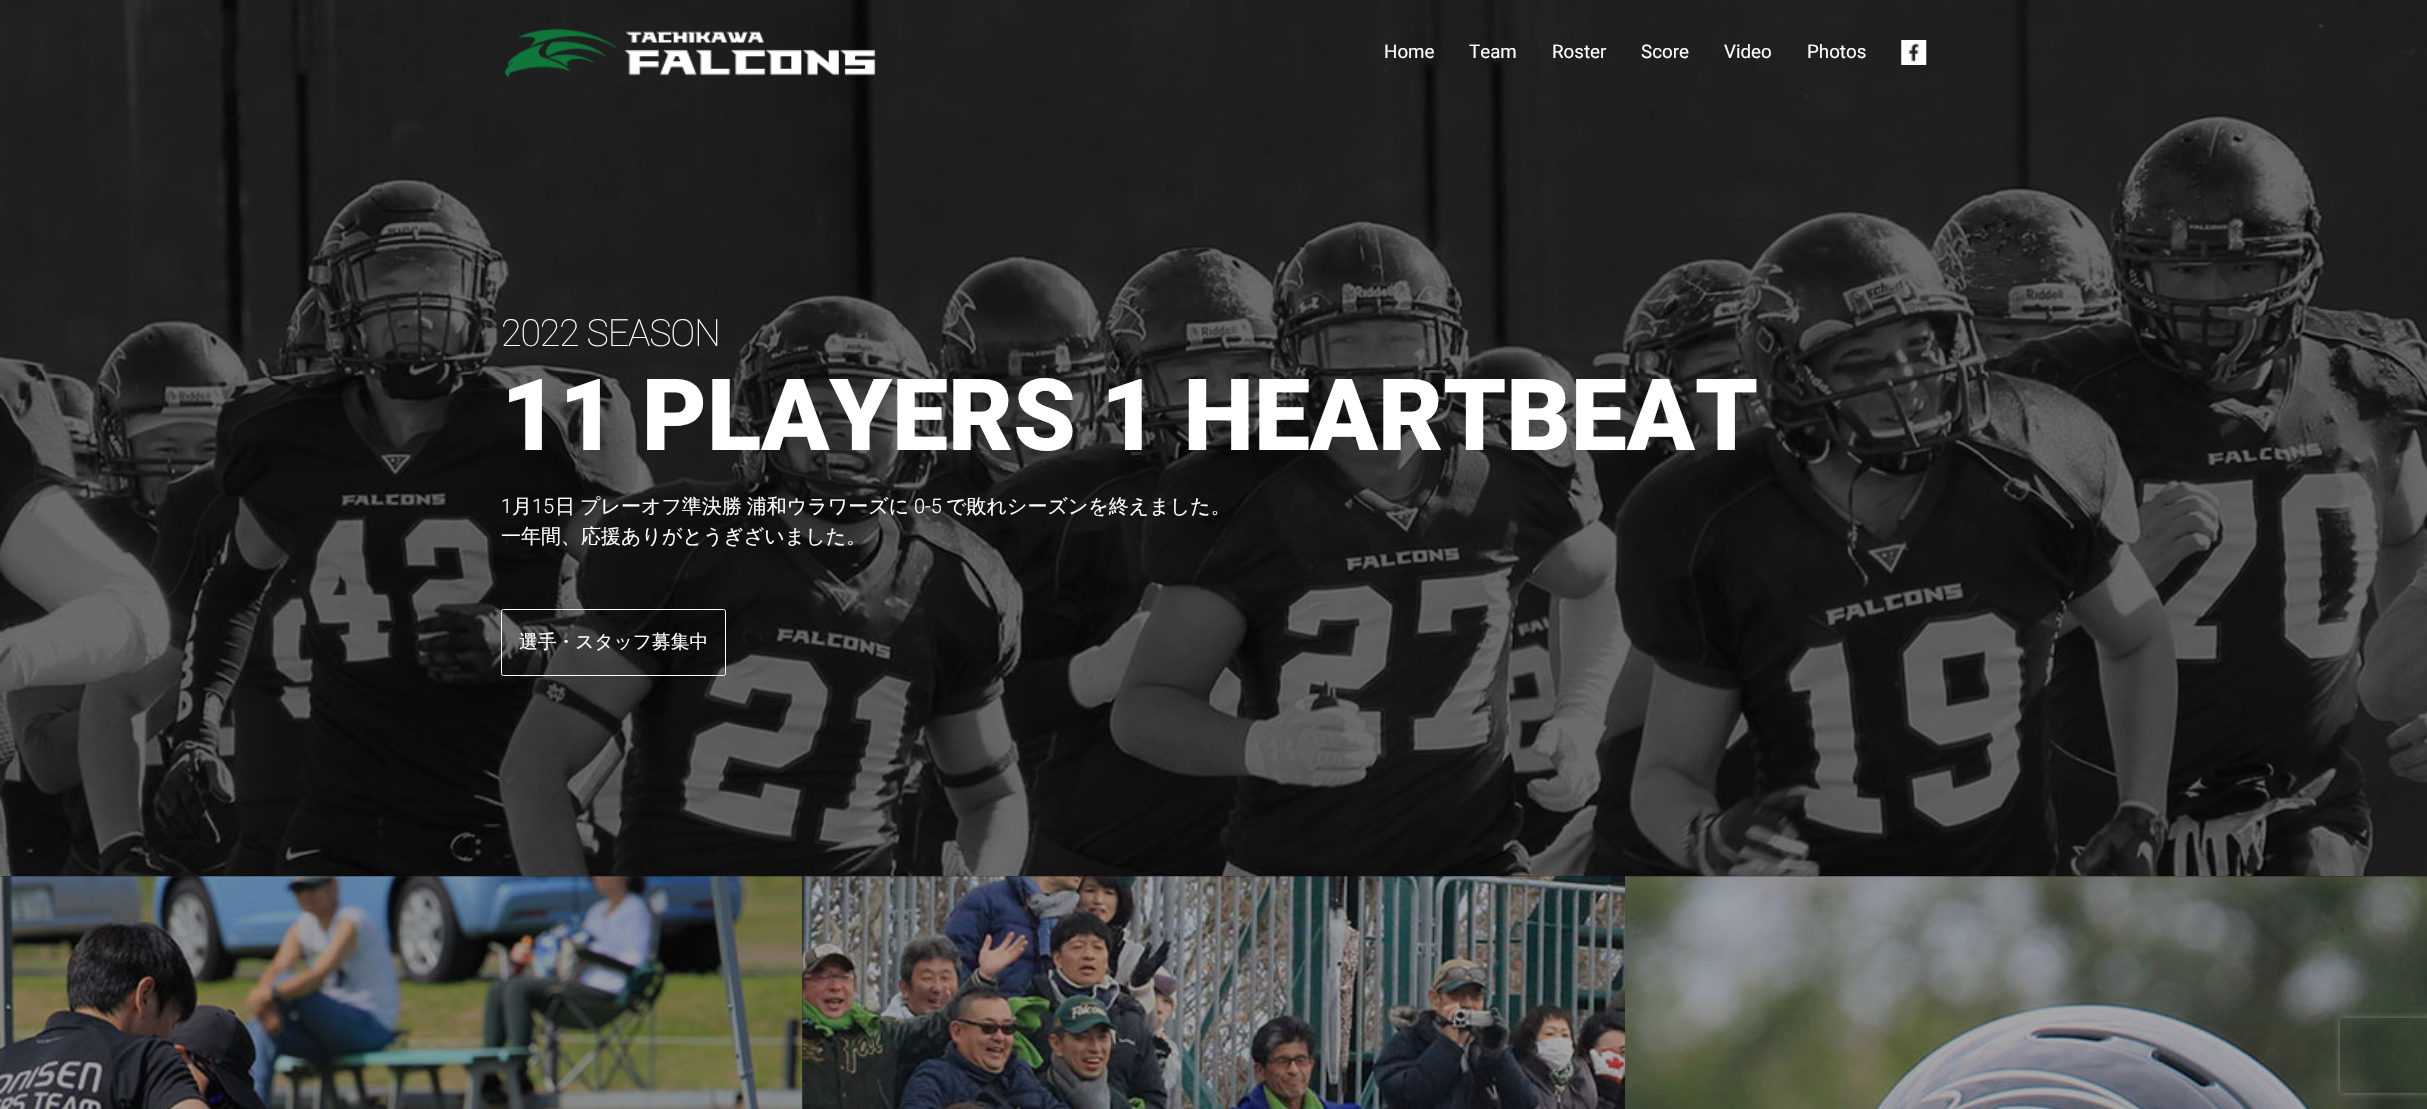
void draw(SkCanvas* canvas) {
	SkPaint paint;
	paint.setAntiAlias(true);
	auto spacedText = [&](const char* s, float x, float y, const SkFont& font, const SkPaint& ink, float letter, float word) {
		std::vector<SkGlyphID> glyphs(font.countText(s, strlen(s), SkTextEncoding::kUTF8));
		std::vector<float> xs(glyphs.size());
		font.textToGlyphs(s, strlen(s), SkTextEncoding::kUTF8, glyphs);
		font.getXPos(glyphs, xs, x);
		float extra = 0;
		for (size_t i = 0; i < glyphs.size(); i++) {
			xs[i] += extra;
			extra += letter + word * (glyphs[i] == font.unicharToGlyph(' '));
		}
		canvas->drawTextBlob(SkTextBlob::MakeFromPosHGlyphs(glyphs, xs, y, font), 0, 0, ink);
	};
	auto svgPath = [&](const char* data, bool evenOdd = false) {
		SkPath result = *SkParsePath::FromSVGString(data);
		if (evenOdd) result.setFillType(SkPathFillType::kEvenOdd);
		return result;
	};
	canvas->clear(0xffffffff);
	canvas->drawImageRect(SkImages::DeferredFromEncodedData(SkData::MakeFromFileName("img3.png")), SkRect::MakeXYWH(0, 0, 2427, 876), SkSamplingOptions());
	canvas->drawImageRect(SkImages::DeferredFromEncodedData(SkData::MakeFromFileName("img1.png")), SkRect::MakeXYWH(504, 28, 372, 50), SkSamplingOptions());
	SkFont f1(fontMgr->matchFamilyStyle("Roboto", SkFontStyle::Normal()), 18.75);
	f1.setSubpixel(true);
	paint.setColor(0xffffffff);
	canvas->drawString("Home", 1384, 58, f1, paint);
	canvas->drawString("Team", 1469, 58, f1, paint);
	canvas->drawString("Roster", 1552, 58, f1, paint);
	canvas->drawString("Score", 1641, 58, f1, paint);
	canvas->drawString("Video", 1724, 58, f1, paint);
	canvas->drawString("Photos", 1807, 58, f1, paint);
	canvas->drawImageRect(SkImages::DeferredFromEncodedData(SkData::MakeFromFileName("img2.png")), SkRect::MakeXYWH(1901, 40, 26, 25), SkSamplingOptions());
	SkFont f2(fontMgr->matchFamilyStyle("Roboto", SkFontStyle(100, SkFontStyle::kNormal_Width, SkFontStyle::kUpright_Slant)), 37.5);
	f2.setSubpixel(true);
	spacedText("2022 SEASON", 501, 346, f2, paint, -1.1, 0);
	SkFont f3(fontMgr->matchFamilyStyle("Roboto", SkFontStyle(900, SkFontStyle::kNormal_Width, SkFontStyle::kUpright_Slant)), 100);
	f3.setSubpixel(true);
	canvas->drawString("11 PLAYERS 1 HEARTBEAT", 501, 450, f3, paint);
	SkFont f4(fontMgr->matchFamilyStyle("Roboto", SkFontStyle(300, SkFontStyle::kNormal_Width, SkFontStyle::kUpright_Slant)), 20);
	f4.setSubpixel(true);
	canvas->drawString("1", 501, 513, f4, paint);
	SkFont f5(fontMgr->matchFamilyStyle("WenQuanYi Zen Hei", SkFontStyle(500, SkFontStyle::kNormal_Width, SkFontStyle::kUpright_Slant)), 20);
	f5.setSubpixel(true);
	canvas->drawString("月", 512, 513, f5, paint);
	canvas->drawString("15", 532, 513, f4, paint);
	spacedText("日 プレーオフ準決勝 浦和ウラワーズに", 555, 513, f5, paint, 0, -1);
	canvas->drawString("0-5", 914, 513, f4, paint);
	canvas->drawString("で敗れシーズンを終えました。", 946, 513, f5, paint);
	canvas->drawString("一年間、応援ありがとうぎざいました。", 501, 543, f5, paint);
	paint.setStroke(true);
	paint.setStrokeWidth(1);
	canvas->drawRoundRect(SkRect::MakeXYWH(501.5, 609.5, 224, 66), 2, 2, paint);
	SkFont f6(fontMgr->matchFamilyStyle("WenQuanYi Zen Hei", SkFontStyle(500, SkFontStyle::kNormal_Width, SkFontStyle::kUpright_Slant)), 18.75);
	f6.setSubpixel(true);
	paint.setStroke(false);
	canvas->drawString("選手・スタッフ募集中", 519, 648, f6, paint);
	paint.setColor(0xff020202);
	canvas->drawRect(SkRect::MakeXYWH(0, 876, 2427, 233), paint);
	canvas->drawImageRect(SkImages::DeferredFromEncodedData(SkData::MakeFromFileName("img4.png")), SkRect::MakeXYWH(0, 876, 803, 233), SkSamplingOptions());
	canvas->drawImageRect(SkImages::DeferredFromEncodedData(SkData::MakeFromFileName("img5.png")), SkRect::MakeXYWH(802, 876, 823, 233), SkSamplingOptions());
	canvas->drawImageRect(SkImages::DeferredFromEncodedData(SkData::MakeFromFileName("img6.png")), SkRect::MakeXYWH(1625, 876, 802, 233), SkSamplingOptions());
	canvas->save();
	canvas->clipPath(svgPath("M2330 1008H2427V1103H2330ZM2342.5 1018H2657.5C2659 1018 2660 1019 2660 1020.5V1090.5C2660 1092 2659 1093 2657.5 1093H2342.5C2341 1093 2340 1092 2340 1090.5V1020.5C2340 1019 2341 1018 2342.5 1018Z", true), true);
	paint.setColor(0xff808080);
	paint.setMaskFilter(SkMaskFilter::MakeBlur(kNormal_SkBlurStyle, 3));
	canvas->drawRoundRect(SkRect::MakeXYWH(2340, 1018, 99, 75), 2.5, 2.5, paint);
	paint.setMaskFilter(nullptr);
	canvas->restore();
}
